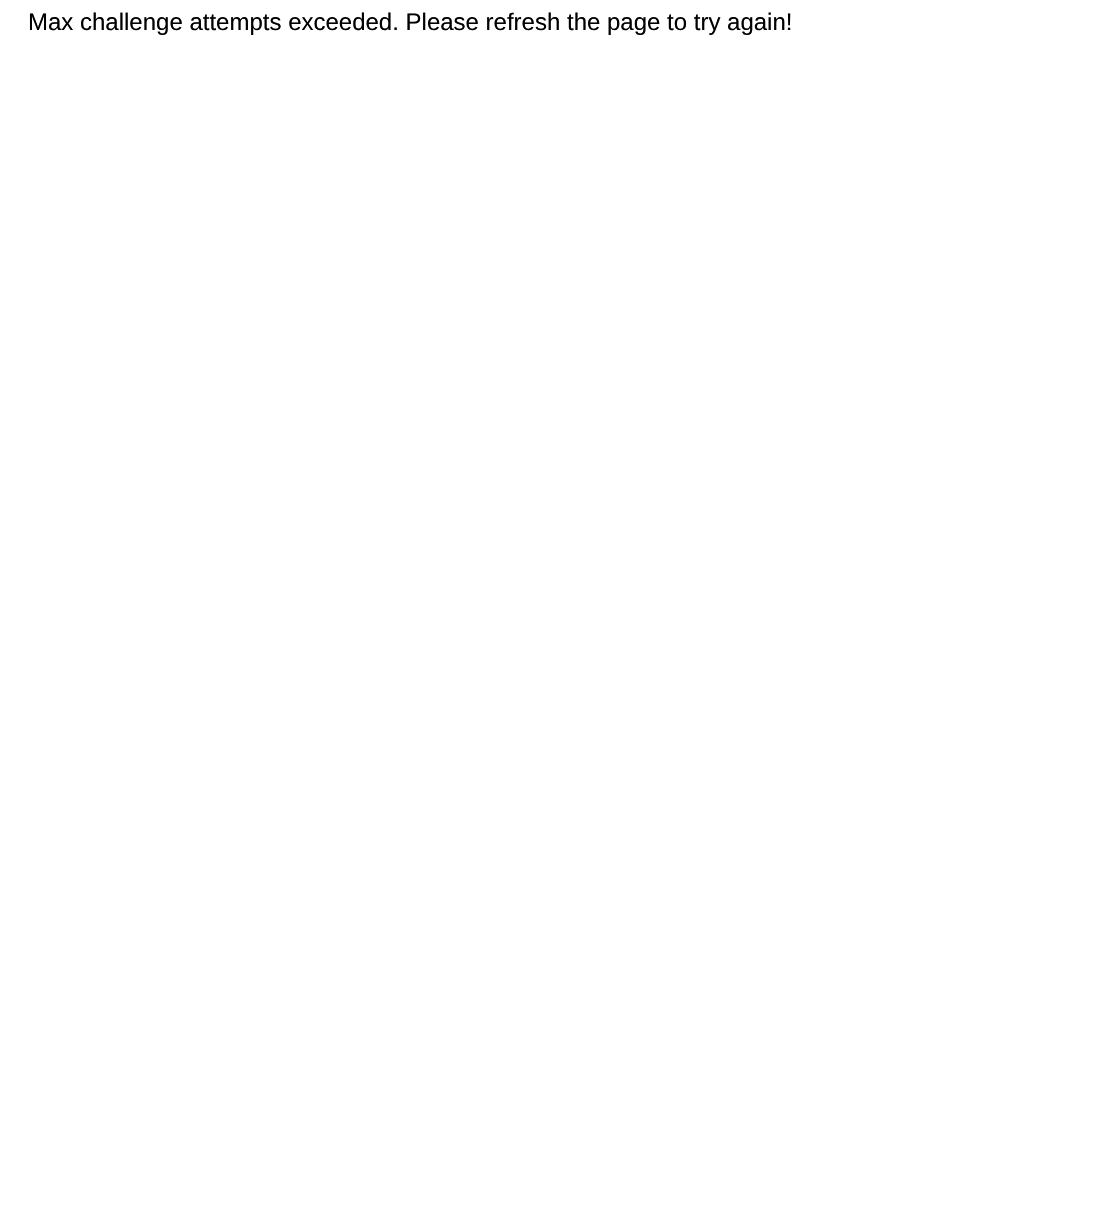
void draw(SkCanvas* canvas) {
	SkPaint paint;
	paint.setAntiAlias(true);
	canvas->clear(0xffffffff);
	SkFont f1(fontMgr->matchFamilyStyle("Liberation Sans", SkFontStyle::Normal()), 24);
	f1.setSubpixel(true);
	paint.setColor(0xff000000);
	canvas->drawString("Max challenge attempts exceeded. Please refresh the page to try again!", 28, 30, f1, paint);
}
